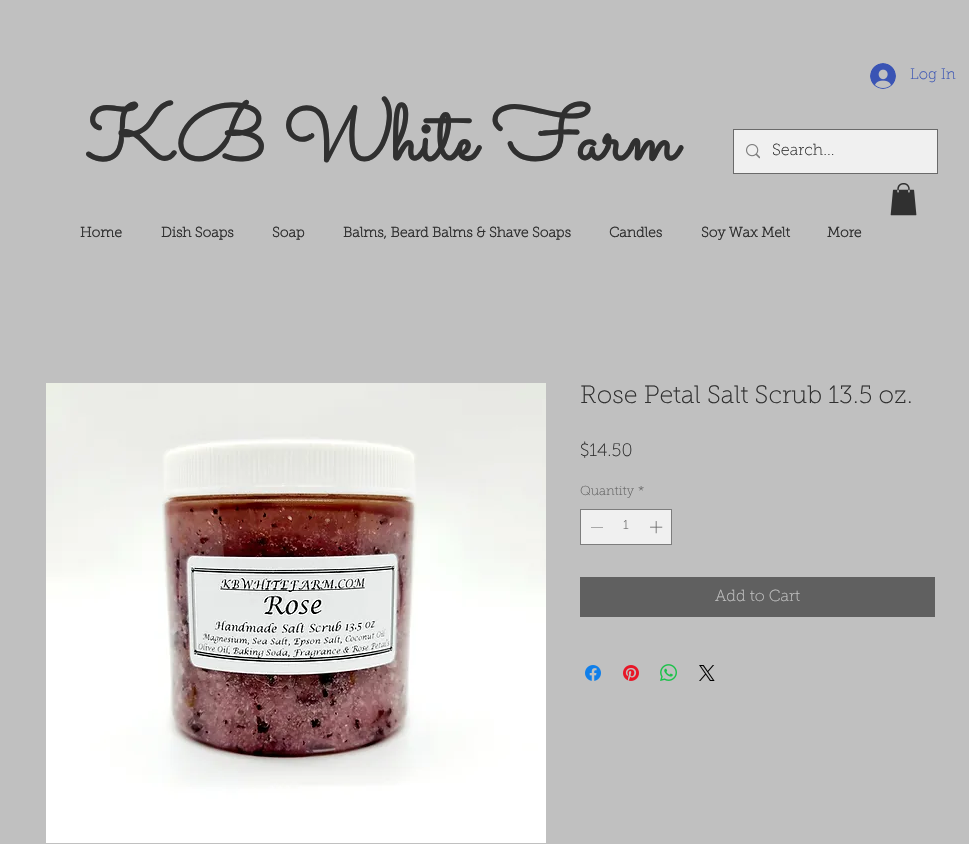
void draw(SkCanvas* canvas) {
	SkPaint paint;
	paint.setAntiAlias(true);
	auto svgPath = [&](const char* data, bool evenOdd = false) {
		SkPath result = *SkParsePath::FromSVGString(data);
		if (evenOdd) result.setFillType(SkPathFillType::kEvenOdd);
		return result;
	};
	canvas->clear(0xffc0c0c0);
	canvas->drawImageRect(SkImages::DeferredFromEncodedData(SkData::MakeFromFileName("img1.png")), SkRect::MakeXYWH(870, 63, 26, 26), SkSamplingOptions());
	SkFont f1(fontMgr->matchFamilyStyle("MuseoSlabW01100", SkFontStyle(100, SkFontStyle::kNormal_Width, SkFontStyle::kUpright_Slant)), 15);
	f1.setSubpixel(true);
	paint.setColor(0xff3a54b4);
	canvas->drawString("Log In", 910, 79, f1, paint);
	SkFont f2(fontMgr->matchFamilyStyle("Sacramento", SkFontStyle::Bold()), 78);
	f2.setSubpixel(true);
	paint.setColor(0xff303030);
	canvas->drawString("KB White Farm", 86, 160, f2, paint);
	paint.setStroke(true);
	paint.setStrokeWidth(1);
	paint.setColor(0xff6a6a6a);
	canvas->drawRect(SkRect::MakeXYWH(733.5, 129.5, 204, 44), paint);
	paint.setStroke(false);
	paint.setColor(0xfff0f0f0);
	canvas->drawRect(SkRect::MakeXYWH(734, 130, 203, 43), paint);
	canvas->drawImageRect(SkImages::DeferredFromEncodedData(SkData::MakeFromFileName("img2.png")), SkRect::MakeXYWH(746, 144, 14, 15), SkSamplingOptions());
	SkFont f3(fontMgr->matchFamilyStyle("MuseoSlabW01100", SkFontStyle(100, SkFontStyle::kNormal_Width, SkFontStyle::kUpright_Slant)), 16);
	f3.setSubpixel(true);
	paint.setColor(0xff303030);
	canvas->drawString("Search...", 772, 155, f3, paint);
	canvas->drawImageRect(SkImages::DeferredFromEncodedData(SkData::MakeFromFileName("img3.png")), SkRect::MakeXYWH(890, 183, 27, 33), SkSamplingOptions());
	SkFont f4(fontMgr->matchFamilyStyle("MuseoSlabW01100", SkFontStyle::Bold()), 14);
	f4.setSubpixel(true);
	canvas->drawString("Home", 80, 237, f4, paint);
	canvas->drawString("Dish Soaps", 161, 237, f4, paint);
	canvas->drawString("Soap", 272, 237, f4, paint);
	canvas->drawString("Balms, Beard Balms & Shave Soaps", 343, 237, f4, paint);
	canvas->drawString("Candles", 609, 237, f4, paint);
	canvas->drawString("Soy Wax Melt", 701, 237, f4, paint);
	canvas->drawString("More", 827, 237, f4, paint);
	canvas->drawImageRect(SkImages::DeferredFromEncodedData(SkData::MakeFromFileName("img4.png")), SkRect::MakeXYWH(46, 383, 500, 460), SkSamplingOptions());
	SkFont f5(fontMgr->matchFamilyStyle("MuseoSlabW01100", SkFontStyle(100, SkFontStyle::kNormal_Width, SkFontStyle::kUpright_Slant)), 25);
	f5.setSubpixel(true);
	canvas->drawString("Rose Petal Salt Scrub 13.5 oz.", 580, 403, f5, paint);
	SkFont f6(fontMgr->matchFamilyStyle("MuseoSlabW01100", SkFontStyle(100, SkFontStyle::kNormal_Width, SkFontStyle::kUpright_Slant)), 18);
	f6.setSubpixel(true);
	canvas->drawString("$14.50", 580, 456, f6, paint);
	SkFont f7(fontMgr->matchFamilyStyle("MuseoSlabW01100", SkFontStyle(100, SkFontStyle::kNormal_Width, SkFontStyle::kUpright_Slant)), 13);
	f7.setSubpixel(true);
	paint.setColor(0xff606060);
	canvas->drawString("Quantity", 580, 495, f7, paint);
	canvas->drawString("*", 638, 495, f7, paint);
	paint.setColor(0xfff0f0f0);
	canvas->drawRect(SkRect::MakeXYWH(580.5, 509.5, 91, 35), paint);
	paint.setStroke(true);
	paint.setColor(0xff7d7d7d);
	canvas->drawRect(SkRect::MakeXYWH(580.5, 509.5, 91, 35), paint);
	paint.setStroke(false);
	paint.setColor(0xff606060);
	canvas->drawPath(svgPath("M603 527V527.5H591V527Z", true), paint);
	canvas->drawString("1", 623, 529, f7, paint);
	canvas->drawImageRect(SkImages::DeferredFromEncodedData(SkData::MakeFromFileName("img5.png")), SkRect::MakeXYWH(650, 521, 13, 13), SkSamplingOptions());
	canvas->drawRect(SkRect::MakeXYWH(580, 577, 355, 40), paint);
	paint.setColor(0xffc0c0c0);
	canvas->drawString("Add to Cart", 715, 601, f3, paint);
	canvas->drawImageRect(SkImages::DeferredFromEncodedData(SkData::MakeFromFileName("img6.png")), SkRect::MakeXYWH(585, 665, 16, 16), SkSamplingOptions());
	canvas->drawImageRect(SkImages::DeferredFromEncodedData(SkData::MakeFromFileName("img7.png")), SkRect::MakeXYWH(623, 665, 16, 16), SkSamplingOptions());
	canvas->drawImageRect(SkImages::DeferredFromEncodedData(SkData::MakeFromFileName("img8.png")), SkRect::MakeXYWH(660, 664, 17, 17), SkSamplingOptions());
	canvas->drawImageRect(SkImages::DeferredFromEncodedData(SkData::MakeFromFileName("img9.png")), SkRect::MakeXYWH(699, 665, 16, 16), SkSamplingOptions());
}
